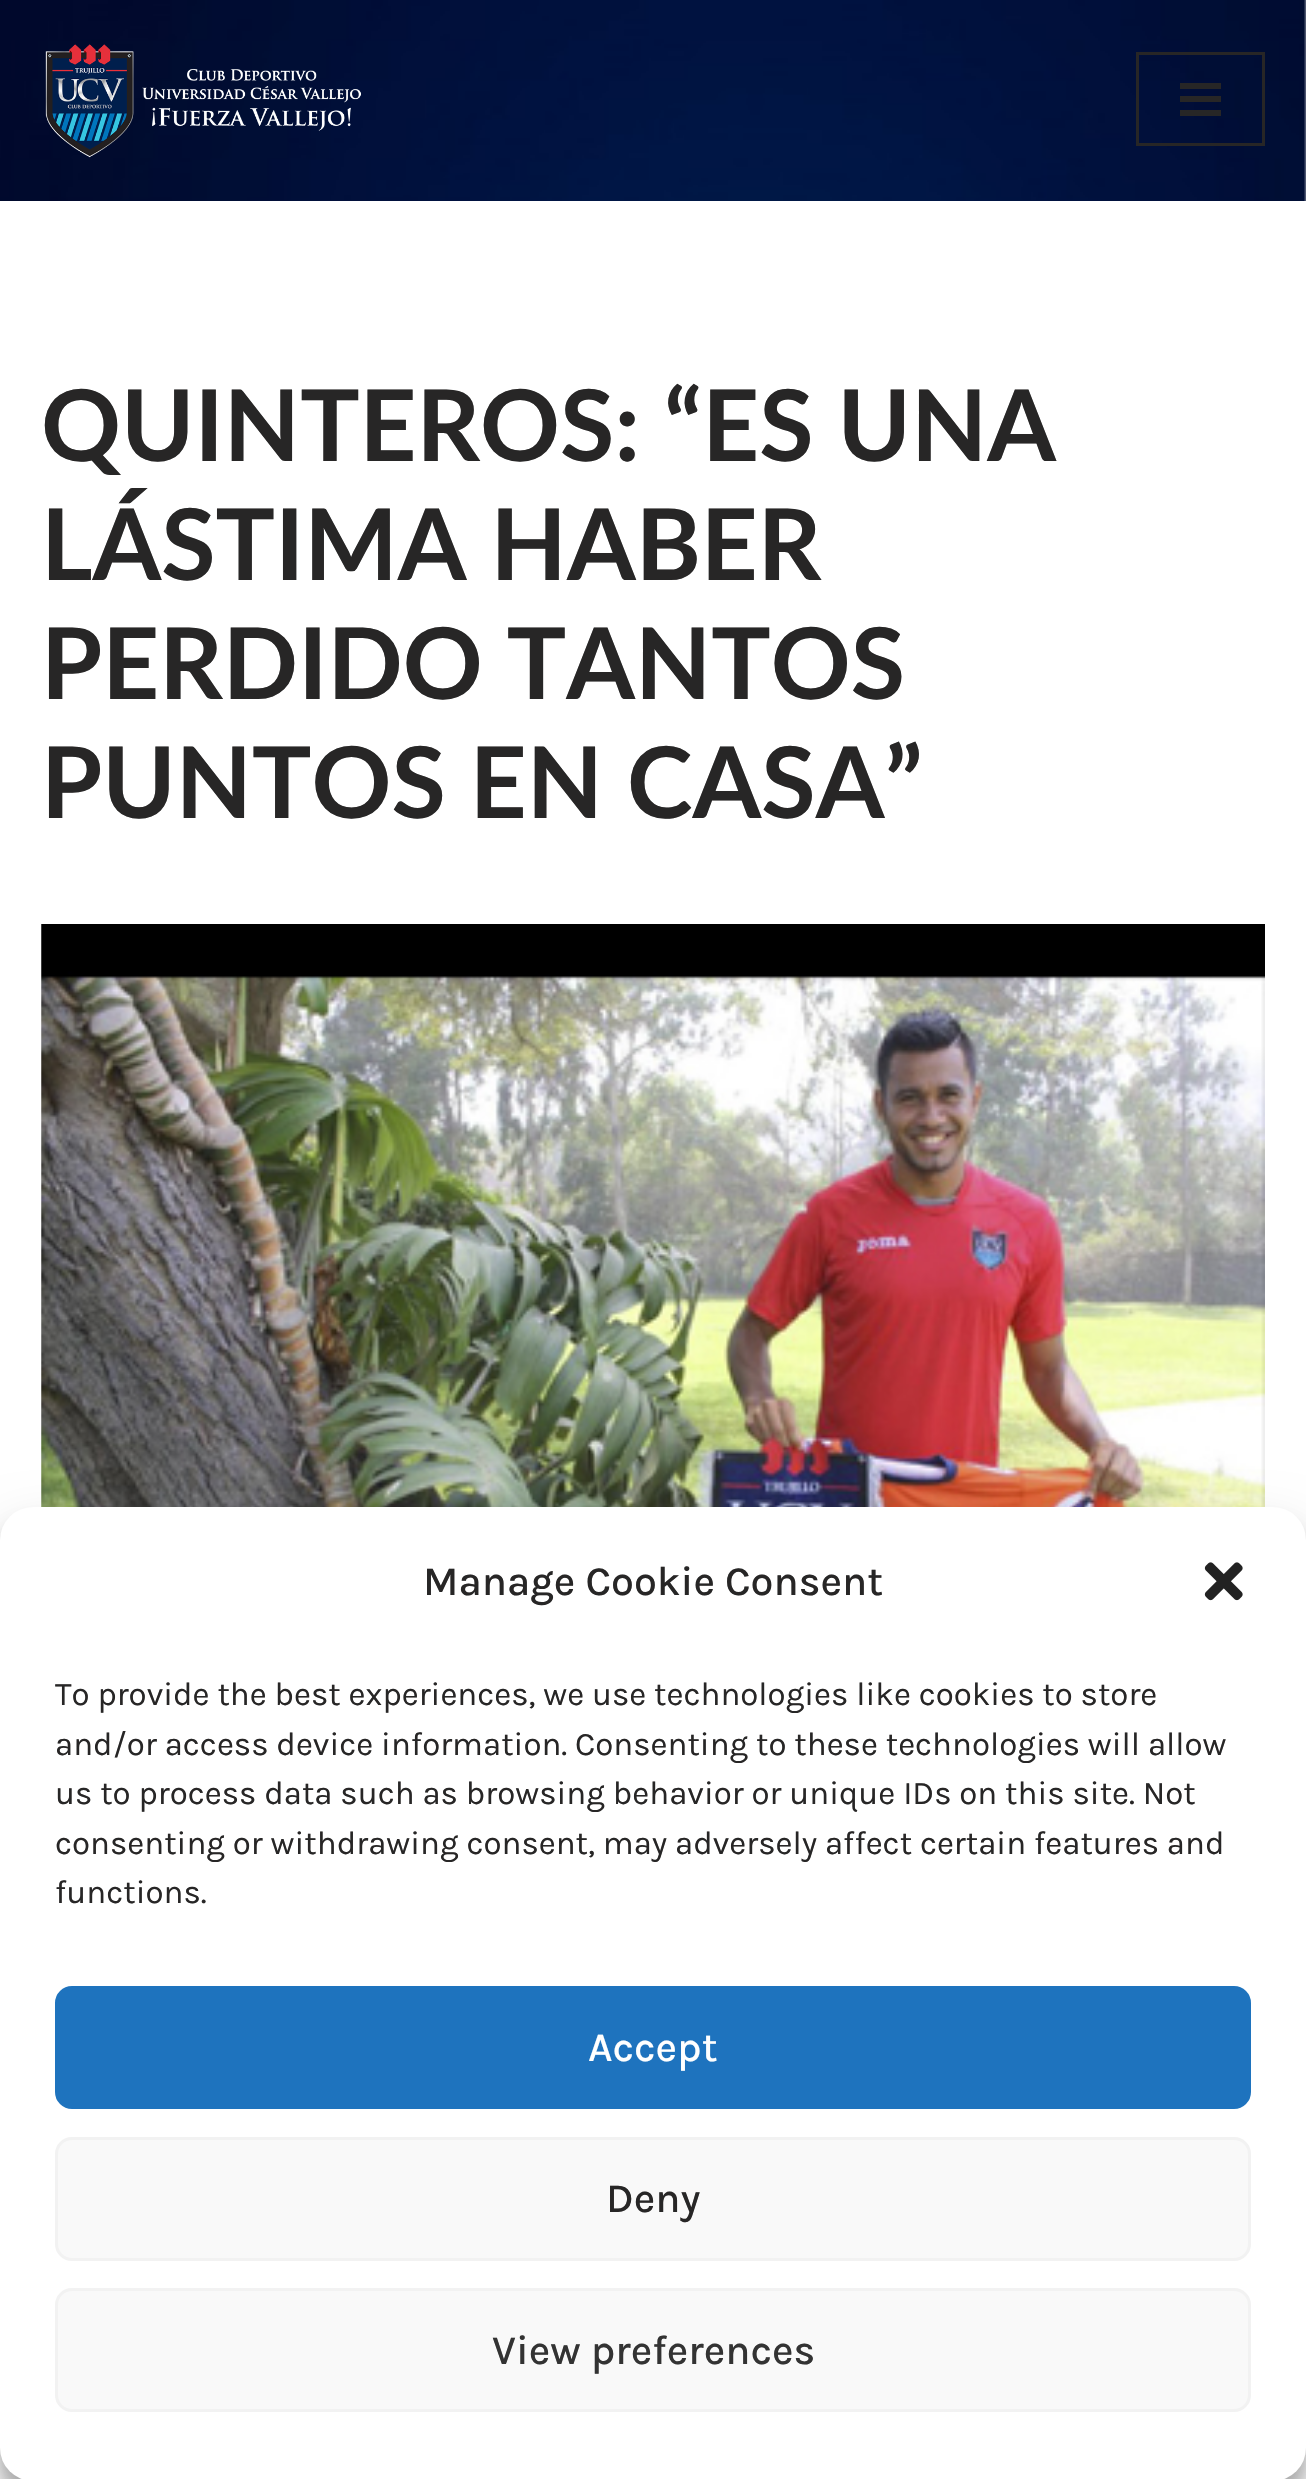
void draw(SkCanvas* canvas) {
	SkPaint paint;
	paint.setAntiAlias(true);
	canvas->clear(0xffffffff);
	canvas->drawImageRect(SkImages::DeferredFromEncodedData(SkData::MakeFromFileName("img1.png")), SkRect::MakeXYWH(0, 0, 1306, 201), SkSamplingOptions());
	canvas->drawImageRect(SkImages::DeferredFromEncodedData(SkData::MakeFromFileName("img2.png")), SkRect::MakeXYWH(45, 44, 316, 114), SkSamplingOptions());
	paint.setStroke(true);
	paint.setStrokeWidth(3);
	paint.setColor(0xff272626);
	canvas->drawRect(SkRect::MakeXYWH(1137.5, 53.5, 126, 91), paint);
	paint.setStroke(false);
	canvas->drawRect(SkRect::MakeXYWH(1180, 83, 41, 6), paint);
	canvas->drawRect(SkRect::MakeXYWH(1180, 96, 41, 6), paint);
	canvas->drawRect(SkRect::MakeXYWH(1180, 110, 41, 6), paint);
	SkFont f1(fontMgr->matchFamilyStyle("Lato", SkFontStyle::Bold()), 99);
	f1.setSubpixel(true);
	canvas->drawString("QUINTEROS: “ES UNA", 41, 461, f1, paint);
	canvas->drawString("LÁSTIMA HABER", 41, 580, f1, paint);
	canvas->drawString("PERDIDO TANTOS", 41, 699, f1, paint);
	canvas->drawString("PUNTOS EN CASA”", 41, 818, f1, paint);
	canvas->drawImageRect(SkImages::DeferredFromEncodedData(SkData::MakeFromFileName("img3.png")), SkRect::MakeXYWH(41, 924, 1224, 583), SkSamplingOptions());
	paint.setColor(0x3b000000);
	paint.setMaskFilter(SkMaskFilter::MakeBlur(kNormal_SkBlurStyle, 8));
	canvas->drawRoundRect(SkRect::MakeXYWH(0, 1524, 1306, 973), 33, 33, paint);
	paint.setMaskFilter(nullptr);
	paint.setColor(0x30000000);
	paint.setMaskFilter(SkMaskFilter::MakeBlur(kNormal_SkBlurStyle, 27.5));
	canvas->drawRoundRect(SkRect::MakeXYWH(0, 1535, 1306, 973), 33, 33, paint);
	paint.setMaskFilter(nullptr);
	paint.setColor(0xffffffff);
	canvas->drawRoundRect(SkRect::MakeXYWH(0, 1507, 1306, 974), 33, 33, paint);
	SkFont f2(fontMgr->matchFamilyStyle("Karla", SkFontStyle(500, SkFontStyle::kNormal_Width, SkFontStyle::kUpright_Slant)), 41.25);
	f2.setSubpixel(true);
	paint.setColor(0xff272626);
	canvas->drawString("Manage Cookie Consent", 423, 1595, f2, paint);
	canvas->drawImageRect(SkImages::DeferredFromEncodedData(SkData::MakeFromFileName("img4.png")), SkRect::MakeXYWH(1204, 1562, 39, 39), SkSamplingOptions());
	SkFont f3(fontMgr->matchFamilyStyle("Karla", SkFontStyle::Normal()), 33);
	f3.setSubpixel(true);
	canvas->drawString("To provide the best experiences, we use technologies like cookies to store", 55, 1705, f3, paint);
	canvas->drawString("and/or access device information. Consenting to these technologies will allow", 55, 1755, f3, paint);
	canvas->drawString("us to process data such as browsing behavior or unique IDs on this site. Not", 55, 1804, f3, paint);
	canvas->drawString("consenting or withdrawing consent, may adversely affect certain features and", 55, 1854, f3, paint);
	canvas->drawString("functions.", 55, 1903, f3, paint);
	paint.setColor(0xff1e73be);
	canvas->drawRoundRect(SkRect::MakeXYWH(56.5, 1987.5, 1193, 120), 15.5, 15.5, paint);
	paint.setStroke(true);
	canvas->drawRoundRect(SkRect::MakeXYWH(56.5, 1987.5, 1193, 120), 15.5, 15.5, paint);
	paint.setStroke(false);
	paint.setColor(0xffffffff);
	canvas->drawString("Accept", 588, 2061, f2, paint);
	paint.setColor(0xfff9f9f9);
	canvas->drawRoundRect(SkRect::MakeXYWH(56.5, 2138.5, 1193, 121), 15.5, 15.5, paint);
	paint.setStroke(true);
	paint.setColor(0xfff2f2f2);
	canvas->drawRoundRect(SkRect::MakeXYWH(56.5, 2138.5, 1193, 121), 15.5, 15.5, paint);
	paint.setStroke(false);
	paint.setColor(0xff272626);
	canvas->drawString("Deny", 606, 2212, f2, paint);
	paint.setColor(0xfff9f9f9);
	canvas->drawRoundRect(SkRect::MakeXYWH(56.5, 2289.5, 1193, 121), 15.5, 15.5, paint);
	paint.setStroke(true);
	paint.setColor(0xfff2f2f2);
	canvas->drawRoundRect(SkRect::MakeXYWH(56.5, 2289.5, 1193, 121), 15.5, 15.5, paint);
	paint.setStroke(false);
	paint.setColor(0xff333333);
	canvas->drawString("View preferences", 492, 2364, f2, paint);
}
